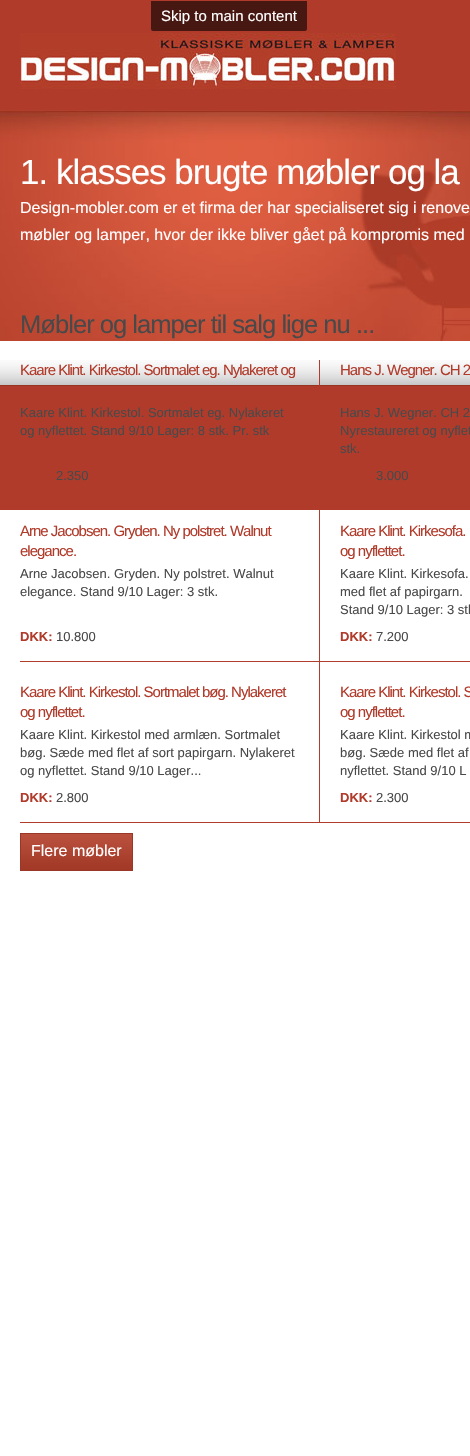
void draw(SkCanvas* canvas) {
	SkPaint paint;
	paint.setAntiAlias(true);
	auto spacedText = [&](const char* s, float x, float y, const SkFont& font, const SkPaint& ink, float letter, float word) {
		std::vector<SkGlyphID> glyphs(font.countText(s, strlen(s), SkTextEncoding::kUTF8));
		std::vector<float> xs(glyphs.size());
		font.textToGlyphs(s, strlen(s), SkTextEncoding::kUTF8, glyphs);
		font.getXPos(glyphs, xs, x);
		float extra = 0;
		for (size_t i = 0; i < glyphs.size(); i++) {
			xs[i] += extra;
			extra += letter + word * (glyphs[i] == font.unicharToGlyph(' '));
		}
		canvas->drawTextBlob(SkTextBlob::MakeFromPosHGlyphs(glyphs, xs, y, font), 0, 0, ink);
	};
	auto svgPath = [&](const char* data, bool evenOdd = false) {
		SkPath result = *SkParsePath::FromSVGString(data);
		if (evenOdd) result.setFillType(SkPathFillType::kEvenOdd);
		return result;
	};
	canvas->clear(0xffffffff);
	paint.setColor(0xffb13b2b);
	canvas->drawRect(SkRect::MakeXYWH(0, 0, 470, 110), paint);
	canvas->drawImageRect(SkImages::DeferredFromEncodedData(SkData::MakeFromFileName("img1.png")), SkRect::MakeXYWH(20, 33, 376, 56), SkSamplingOptions());
	paint.setColor(0xff471811);
	canvas->drawPath(svgPath("M151 1H307V29C307 30 306 31 305 31H153C152 31 151 30 151 29Z"), paint);
	SkFont f1(fontMgr->matchFamilyStyle("Liberation Sans", SkFontStyle::Normal()), 15);
	f1.setSubpixel(true);
	paint.setColor(0xffffffff);
	canvas->drawString("Skip to main content", 161, 21, f1, paint);
	canvas->drawImageRect(SkImages::DeferredFromEncodedData(SkData::MakeFromFileName("img2.png")), SkRect::MakeXYWH(0, 110, 470, 231), SkSamplingOptions());
	SkFont f2(fontMgr->matchFamilyStyle("Liberation Sans", SkFontStyle::Normal()), 35);
	f2.setSubpixel(true);
	spacedText("1. klasses brugte møbler og la", 20, 184, f2, paint, -1, 0);
	SkFont f3(fontMgr->matchFamilyStyle("Liberation Sans", SkFontStyle::Normal()), 16);
	f3.setSubpixel(true);
	canvas->drawString("Design-mobler.com er et firma der har specialiseret sig i renove", 20, 213, f3, paint);
	canvas->drawString("møbler og lamper, hvor der ikke bliver gået på kompromis med", 20, 240, f3, paint);
	SkFont f4(fontMgr->matchFamilyStyle("Liberation Sans", SkFontStyle::Normal()), 25.6);
	f4.setSubpixel(true);
	paint.setColor(0xff494949);
	spacedText("Møbler og lamper til salg lige nu ...", 20, 333, f4, paint, -1, 0);
	canvas->drawImageRect(SkImages::DeferredFromEncodedData(SkData::MakeFromFileName("img4.png")), SkRect::MakeXYWH(0, 360, 470, 26), SkSamplingOptions());
	paint.setColor(0xffb03c2c);
	canvas->drawRect(SkRect::MakeXYWH(319, 360, 1, 26), paint);
	paint.setColor(0xffb13b2b);
	spacedText("Kaare Klint. Kirkestol. Sortmalet eg. Nylakeret og", 20, 375, f1, paint, -1, 0);
	canvas->drawRect(SkRect::MakeXYWH(0, 386, 470, 124), paint);
	SkFont f5(fontMgr->matchFamilyStyle("Liberation Sans", SkFontStyle::Normal()), 13);
	f5.setSubpixel(true);
	paint.setColor(0xff494949);
	canvas->drawString("Kaare Klint. Kirkestol. Sortmalet eg. Nylakeret", 20, 417, f5, paint);
	canvas->drawString("og nyflettet. Stand 9/10 Lager: 8 stk. Pr. stk", 20, 435, f5, paint);
	canvas->drawString("2.350", 56, 480, f5, paint);
	paint.setColor(0xffb13b2b);
	spacedText("Hans J. Wegner. CH 2", 340, 375, f1, paint, -1, 0);
	paint.setColor(0xff494949);
	canvas->drawString("Hans J. Wegner. CH 2", 340, 417, f5, paint);
	canvas->drawString("Nyrestaureret og nyflet", 340, 435, f5, paint);
	canvas->drawString("stk.", 340, 453, f5, paint);
	canvas->drawString("3.000", 376, 480, f5, paint);
	paint.setColor(0xffb03c2c);
	canvas->drawRect(SkRect::MakeXYWH(319, 510, 1, 313), paint);
	canvas->drawRect(SkRect::MakeXYWH(20, 661, 450, 1), paint);
	paint.setColor(0xffb13b2b);
	spacedText("Arne Jacobsen. Gryden. Ny polstret. Walnut", 20, 536, f1, paint, -1, 0);
	spacedText("elegance.", 20, 556, f1, paint, -1, 0);
	paint.setColor(0xff494949);
	canvas->drawString("Arne Jacobsen. Gryden. Ny polstret. Walnut", 20, 578, f5, paint);
	canvas->drawString("elegance. Stand 9/10 Lager: 3 stk.", 20, 596, f5, paint);
	SkFont f6(fontMgr->matchFamilyStyle("Liberation Sans", SkFontStyle::Bold()), 13);
	f6.setSubpixel(true);
	paint.setColor(0xffb13b2b);
	canvas->drawString("DKK:", 20, 641, f6, paint);
	paint.setColor(0xff494949);
	canvas->drawString("10.800", 56, 641, f5, paint);
	paint.setColor(0xffb13b2b);
	spacedText("Kaare Klint. Kirkesofa.", 340, 536, f1, paint, -1, 0);
	spacedText("og nyflettet.", 340, 556, f1, paint, -1, 0);
	paint.setColor(0xff494949);
	canvas->drawString("Kaare Klint. Kirkesofa.", 340, 578, f5, paint);
	canvas->drawString("med flet af papirgarn.", 340, 596, f5, paint);
	canvas->drawString("Stand 9/10 Lager: 3 stk", 340, 614, f5, paint);
	paint.setColor(0xffb13b2b);
	canvas->drawString("DKK:", 340, 641, f6, paint);
	paint.setColor(0xff494949);
	canvas->drawString("7.200", 376, 641, f5, paint);
	paint.setColor(0xffb03c2c);
	canvas->drawRect(SkRect::MakeXYWH(20, 822, 450, 1), paint);
	paint.setColor(0xffb13b2b);
	spacedText("Kaare Klint. Kirkestol. Sortmalet bøg. Nylakeret", 20, 697, f1, paint, -1, 0);
	spacedText("og nyflettet.", 20, 717, f1, paint, -1, 0);
	paint.setColor(0xff494949);
	canvas->drawString("Kaare Klint. Kirkestol med armlæn. Sortmalet", 20, 739, f5, paint);
	canvas->drawString("bøg. Sæde med flet af sort papirgarn. Nylakeret", 20, 757, f5, paint);
	canvas->drawString("og nyflettet. Stand 9/10 Lager...", 20, 775, f5, paint);
	paint.setColor(0xffb13b2b);
	canvas->drawString("DKK:", 20, 802, f6, paint);
	paint.setColor(0xff494949);
	canvas->drawString("2.800", 56, 802, f5, paint);
	paint.setColor(0xffb13b2b);
	spacedText("Kaare Klint. Kirkestol. S", 340, 697, f1, paint, -1, 0);
	spacedText("og nyflettet.", 340, 717, f1, paint, -1, 0);
	paint.setColor(0xff494949);
	canvas->drawString("Kaare Klint. Kirkestol m", 340, 739, f5, paint);
	canvas->drawString("bøg. Sæde med flet af", 340, 757, f5, paint);
	canvas->drawString("nyflettet. Stand 9/10 L", 340, 775, f5, paint);
	paint.setColor(0xffb13b2b);
	canvas->drawString("DKK:", 340, 802, f6, paint);
	paint.setColor(0xff494949);
	canvas->drawString("2.300", 376, 802, f5, paint);
	canvas->drawImageRect(SkImages::DeferredFromEncodedData(SkData::MakeFromFileName("img3.png")), SkRect::MakeXYWH(21, 834, 111, 36), SkSamplingOptions());
	paint.setStroke(true);
	paint.setStrokeWidth(1);
	paint.setColor(0xff9a3729);
	canvas->drawRect(SkRect::MakeXYWH(20.5, 833.5, 112, 37), paint);
	paint.setStroke(false);
	paint.setColor(0xffffffff);
	canvas->drawString("Flere møbler", 31, 856, f3, paint);
}
